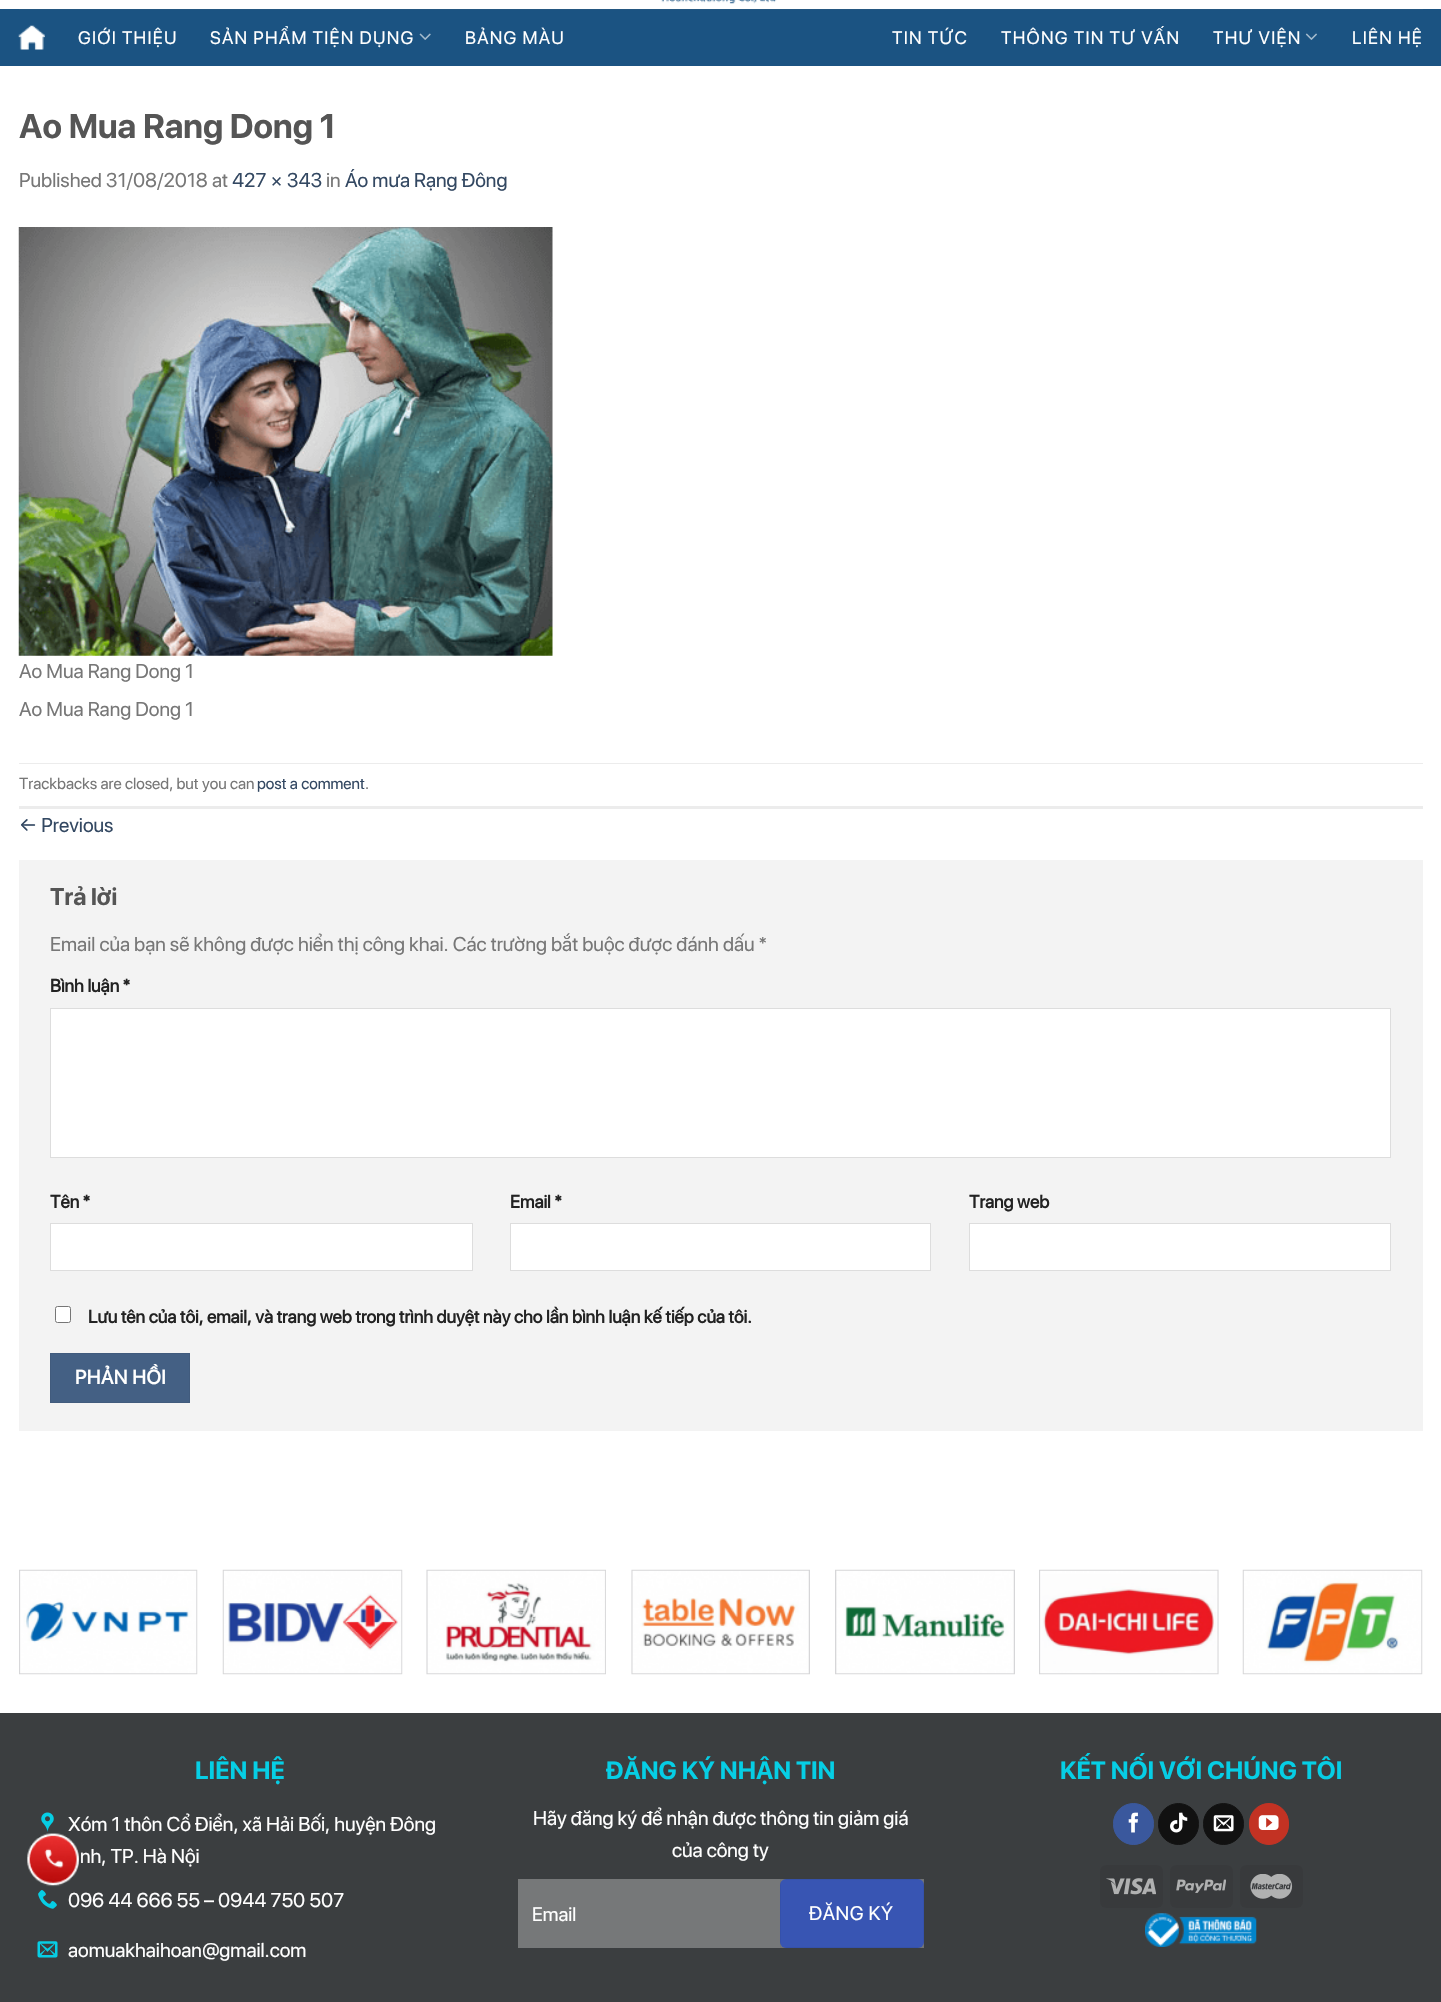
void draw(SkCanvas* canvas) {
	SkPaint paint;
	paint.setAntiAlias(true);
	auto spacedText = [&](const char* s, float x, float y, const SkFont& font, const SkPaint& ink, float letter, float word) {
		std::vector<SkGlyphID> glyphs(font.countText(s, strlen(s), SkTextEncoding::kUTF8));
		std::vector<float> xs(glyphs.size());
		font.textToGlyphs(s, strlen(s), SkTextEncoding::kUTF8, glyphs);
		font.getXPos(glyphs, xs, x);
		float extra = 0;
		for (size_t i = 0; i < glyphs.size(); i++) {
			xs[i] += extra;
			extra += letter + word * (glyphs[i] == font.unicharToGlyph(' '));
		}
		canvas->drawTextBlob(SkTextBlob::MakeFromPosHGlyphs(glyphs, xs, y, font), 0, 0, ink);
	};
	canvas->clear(0xffffffff);
	canvas->drawImageRect(SkImages::DeferredFromEncodedData(SkData::MakeFromFileName("img1.png")), SkRect::MakeXYWH(661, 0, 116, 4), SkSamplingOptions());
	paint.setColor(0xff1b5382);
	canvas->drawRect(SkRect::MakeXYWH(0, 9, 1441, 57), paint);
	paint.setColor(0xff245781);
	canvas->drawRect(SkRect::MakeXYWH(19, 9, 1404, 1), paint);
	canvas->drawImageRect(SkImages::DeferredFromEncodedData(SkData::MakeFromFileName("img2.png")), SkRect::MakeXYWH(18, 25, 27, 25), SkSamplingOptions());
	SkFont f1(fontMgr->matchFamilyStyle("SF Pro Display", SkFontStyle::Normal()), 18);
	f1.setSubpixel(true);
	paint.setColor(0xffffffff);
	spacedText("GIỚI THIỆU", 78, 44, f1, paint, 1.25, 0);
	spacedText("SẢN PHẨM TIỆN DỤNG", 210, 44, f1, paint, 1.25, 0);
	canvas->drawImageRect(SkImages::DeferredFromEncodedData(SkData::MakeFromFileName("img3.png")), SkRect::MakeXYWH(419, 33, 12, 7), SkSamplingOptions());
	spacedText("BẢNG MÀU", 465, 44, f1, paint, 1.25, 0);
	spacedText("TIN TỨC", 892, 44, f1, paint, 1.25, 0);
	spacedText("THÔNG TIN TƯ VẤN", 1001, 44, f1, paint, 1.25, 0);
	spacedText("THƯ VIỆN", 1213, 44, f1, paint, 1.25, 0);
	canvas->drawImageRect(SkImages::DeferredFromEncodedData(SkData::MakeFromFileName("img4.png")), SkRect::MakeXYWH(1305, 33, 12, 7), SkSamplingOptions());
	spacedText("LIÊN HỆ", 1352, 44, f1, paint, 1.25, 0);
	SkFont f2(fontMgr->matchFamilyStyle("SF Pro Display", SkFontStyle::Bold()), 34);
	f2.setSubpixel(true);
	paint.setColor(0xff555555);
	canvas->drawString("Ao Mua Rang Dong 1", 19, 138, f2, paint);
	SkFont f3(fontMgr->matchFamilyStyle("SF Pro Display", SkFontStyle::Normal()), 20);
	f3.setSubpixel(true);
	paint.setColor(0xff777777);
	canvas->drawString("Published 31/08/2018 at", 19, 187, f3, paint);
	paint.setColor(0xff334862);
	canvas->drawString("427 × 343", 232, 187, f3, paint);
	paint.setColor(0xff777777);
	canvas->drawString("in", 326, 187, f3, paint);
	paint.setColor(0xff334862);
	canvas->drawString("Áo mưa Rạng Đông", 345, 187, f3, paint);
	canvas->drawImageRect(SkImages::DeferredFromEncodedData(SkData::MakeFromFileName("img5.png")), SkRect::MakeXYWH(18, 227, 535, 429), SkSamplingOptions());
	paint.setColor(0xff777777);
	canvas->drawString("Ao Mua Rang Dong 1", 19, 678, f3, paint);
	canvas->drawString("Ao Mua Rang Dong 1", 19, 716, f3, paint);
	paint.setColor(0xffececec);
	canvas->drawRect(SkRect::MakeXYWH(19, 763, 1404, 1), paint);
	canvas->drawRect(SkRect::MakeXYWH(19, 806, 1404, 3), paint);
	SkFont f4(fontMgr->matchFamilyStyle("SF Pro Display", SkFontStyle::Normal()), 16);
	f4.setSubpixel(true);
	paint.setColor(0xff777777);
	canvas->drawString("Trackbacks are closed, but you can", 19, 789, f4, paint);
	paint.setColor(0xff334862);
	canvas->drawString("post a comment", 257, 789, f4, paint);
	paint.setColor(0xff777777);
	canvas->drawString(".", 365, 789, f4, paint);
	paint.setColor(0xff334862);
	canvas->drawString("← Previous", 19, 832, f3, paint);
	paint.setColor(0xfff3f3f3);
	canvas->drawRect(SkRect::MakeXYWH(19, 860, 1404, 571), paint);
	SkFont f5(fontMgr->matchFamilyStyle("SF Pro Display", SkFontStyle::Bold()), 24);
	f5.setSubpixel(true);
	paint.setColor(0xff555555);
	canvas->drawString("Trả lời", 50, 905, f5, paint);
	paint.setColor(0xff777777);
	canvas->drawString("Email của bạn sẽ không được hiển thị công khai. Các trường bắt buộc được đánh dấu *", 50, 951, f3, paint);
	SkFont f6(fontMgr->matchFamilyStyle("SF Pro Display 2", SkFontStyle::Bold()), 18);
	f6.setSubpixel(true);
	paint.setColor(0xff222222);
	canvas->drawString("Bình luận *", 50, 992, f6, paint);
	paint.setColor(0xffffffff);
	canvas->drawRect(SkRect::MakeXYWH(50.5, 1008.5, 1340, 149), paint);
	paint.setStroke(true);
	paint.setStrokeWidth(1);
	paint.setColor(0xffdddddd);
	canvas->drawRect(SkRect::MakeXYWH(50.5, 1008.5, 1340, 149), paint);
	paint.setStroke(false);
	paint.setColor(0xff222222);
	canvas->drawString("Tên *", 50, 1208, f6, paint);
	paint.setColor(0xffffffff);
	canvas->drawRect(SkRect::MakeXYWH(50.5, 1223.5, 422, 47), paint);
	paint.setStroke(true);
	paint.setColor(0xffdddddd);
	canvas->drawRect(SkRect::MakeXYWH(50.5, 1223.5, 422, 47), paint);
	paint.setStroke(false);
	paint.setColor(0xff222222);
	canvas->drawString("Email *", 510, 1208, f6, paint);
	paint.setColor(0xffffffff);
	canvas->drawRect(SkRect::MakeXYWH(510.5, 1223.5, 420, 47), paint);
	paint.setStroke(true);
	paint.setColor(0xffdddddd);
	canvas->drawRect(SkRect::MakeXYWH(510.5, 1223.5, 420, 47), paint);
	paint.setStroke(false);
	paint.setColor(0xff222222);
	canvas->drawString("Trang web", 969, 1208, f6, paint);
	paint.setColor(0xffffffff);
	canvas->drawRect(SkRect::MakeXYWH(969.5, 1223.5, 421, 47), paint);
	paint.setStroke(true);
	paint.setColor(0xffdddddd);
	canvas->drawRect(SkRect::MakeXYWH(969.5, 1223.5, 421, 47), paint);
	paint.setStroke(false);
	paint.setColor(0xffffffff);
	canvas->drawRoundRect(SkRect::MakeXYWH(55.5, 1306.5, 15, 16), 2, 2, paint);
	paint.setStroke(true);
	paint.setColor(0xff767676);
	canvas->drawRoundRect(SkRect::MakeXYWH(55.5, 1306.5, 15, 16), 2, 2, paint);
	paint.setStroke(false);
	paint.setColor(0xff222222);
	canvas->drawString("Lưu tên của tôi, email, và trang web trong trình duyệt này cho lần bình luận kế tiếp của tôi.", 88, 1323, f6, paint);
	paint.setColor(0xff446084);
	canvas->drawRect(SkRect::MakeXYWH(50.5, 1353.5, 139, 49), paint);
	paint.setStroke(true);
	paint.setColor(0xff415b7d);
	canvas->drawRect(SkRect::MakeXYWH(50.5, 1353.5, 139, 49), paint);
	SkFont f7(fontMgr->matchFamilyStyle("SF Pro Display 2", SkFontStyle::Bold()), 19.5);
	f7.setSubpixel(true);
	paint.setStroke(false);
	paint.setColor(0xffffffff);
	spacedText("PHẢN HỒI", 75, 1384, f7, paint, 0.5, 0);
	canvas->drawImageRect(SkImages::DeferredFromEncodedData(SkData::MakeFromFileName("img6.png")), SkRect::MakeXYWH(19, 1569, 179, 106), SkSamplingOptions());
	canvas->drawImageRect(SkImages::DeferredFromEncodedData(SkData::MakeFromFileName("img7.png")), SkRect::MakeXYWH(222, 1569, 181, 106), SkSamplingOptions());
	canvas->drawImageRect(SkImages::DeferredFromEncodedData(SkData::MakeFromFileName("img8.png")), SkRect::MakeXYWH(426, 1569, 180, 106), SkSamplingOptions());
	canvas->drawImageRect(SkImages::DeferredFromEncodedData(SkData::MakeFromFileName("img9.png")), SkRect::MakeXYWH(631, 1569, 179, 106), SkSamplingOptions());
	canvas->drawImageRect(SkImages::DeferredFromEncodedData(SkData::MakeFromFileName("img10.png")), SkRect::MakeXYWH(835, 1569, 180, 106), SkSamplingOptions());
	canvas->drawImageRect(SkImages::DeferredFromEncodedData(SkData::MakeFromFileName("img11.png")), SkRect::MakeXYWH(1039, 1569, 180, 106), SkSamplingOptions());
	canvas->drawImageRect(SkImages::DeferredFromEncodedData(SkData::MakeFromFileName("img12.png")), SkRect::MakeXYWH(1242, 1569, 181, 106), SkSamplingOptions());
	paint.setColor(0xff3b3e40);
	canvas->drawRect(SkRect::MakeXYWH(0, 1713, 1441, 289), paint);
	SkFont f8(fontMgr->matchFamilyStyle("SF Pro Display", SkFontStyle::Bold()), 25);
	f8.setSubpixel(true);
	paint.setColor(0xff06cee5);
	canvas->drawString("LIÊN HỆ", 195, 1779, f8, paint);
	canvas->drawImageRect(SkImages::DeferredFromEncodedData(SkData::MakeFromFileName("img13.png")), SkRect::MakeXYWH(41, 1812, 13, 20), SkSamplingOptions());
	paint.setColor(0xffffffff);
	canvas->drawString("Xóm 1 thôn Cổ Điển, xã Hải Bối, huyện Đông", 68, 1831, f3, paint);
	canvas->drawString("nh, TP. Hà Nội", 80, 1863, f3, paint);
	canvas->drawImageRect(SkImages::DeferredFromEncodedData(SkData::MakeFromFileName("img14.png")), SkRect::MakeXYWH(38, 1890, 19, 19), SkSamplingOptions());
	canvas->drawString("096 44 666 55 – 0944 750 507", 68, 1907, f3, paint);
	canvas->drawImageRect(SkImages::DeferredFromEncodedData(SkData::MakeFromFileName("img15.png")), SkRect::MakeXYWH(37, 1941, 21, 17), SkSamplingOptions());
	canvas->drawString("aomuakhaihoan@gmail.com", 68, 1957, f3, paint);
	paint.setColor(0xff06cee5);
	canvas->drawString("ĐĂNG KÝ NHẬN TIN", 606, 1779, f8, paint);
	paint.setColor(0xffffffff);
	canvas->drawString("Hãy đăng ký để nhận được thông tin giảm giá", 533, 1825, f3, paint);
	canvas->drawString("của công ty", 672, 1857, f3, paint);
	paint.setColor(0xff767879);
	canvas->drawRect(SkRect::MakeXYWH(518, 1879, 406, 69), paint);
	SkFont f9(fontMgr->matchFamilyStyle("SF Pro Display", SkFontStyle::Normal()), 19.5);
	f9.setSubpixel(true);
	paint.setColor(0xffffffff);
	canvas->drawString("Email", 532, 1921, f9, paint);
	paint.setColor(0xff3855b3);
	canvas->drawRoundRect(SkRect::MakeXYWH(780, 1879, 144, 69), 6, 6, paint);
	paint.setStroke(true);
	paint.setColor(0x0d000000);
	canvas->drawRect(SkRect::MakeXYWH(780.5, 1879.5, 143, 68), paint);
	paint.setStroke(false);
	paint.setColor(0xffffffff);
	spacedText("ĐĂNG KÝ", 809, 1920, f9, paint, 0.5, 0);
	paint.setColor(0xff06cee5);
	canvas->drawString("KẾT NỐI VỚI CHÚNG TÔI", 1060, 1779, f8, paint);
	paint.setColor(0xff3a589d);
	canvas->drawRoundRect(SkRect::MakeXYWH(1113.5, 1803.5, 40, 41), 20, 20, paint);
	paint.setStroke(true);
	canvas->drawRoundRect(SkRect::MakeXYWH(1113.5, 1803.5, 40, 41), 20, 20, paint);
	canvas->drawImageRect(SkImages::DeferredFromEncodedData(SkData::MakeFromFileName("img16.png")), SkRect::MakeXYWH(1128, 1812, 10, 21), SkSamplingOptions());
	paint.setStroke(false);
	paint.setColor(0xff111111);
	canvas->drawRoundRect(SkRect::MakeXYWH(1158.5, 1803.5, 40, 41), 20, 20, paint);
	paint.setStroke(true);
	canvas->drawRoundRect(SkRect::MakeXYWH(1158.5, 1803.5, 40, 41), 20, 20, paint);
	canvas->drawImageRect(SkImages::DeferredFromEncodedData(SkData::MakeFromFileName("img17.png")), SkRect::MakeXYWH(1170, 1812, 18, 21), SkSamplingOptions());
	paint.setStroke(false);
	canvas->drawRoundRect(SkRect::MakeXYWH(1203.5, 1803.5, 40, 41), 20, 20, paint);
	paint.setStroke(true);
	canvas->drawRoundRect(SkRect::MakeXYWH(1203.5, 1803.5, 40, 41), 20, 20, paint);
	canvas->drawImageRect(SkImages::DeferredFromEncodedData(SkData::MakeFromFileName("img18.png")), SkRect::MakeXYWH(1213, 1815, 21, 17), SkSamplingOptions());
	paint.setStroke(false);
	paint.setColor(0xffc33223);
	canvas->drawRoundRect(SkRect::MakeXYWH(1249.5, 1803.5, 39, 41), 19.5, 19.5, paint);
	paint.setStroke(true);
	canvas->drawRoundRect(SkRect::MakeXYWH(1249.5, 1803.5, 39, 41), 19.5, 19.5, paint);
	canvas->drawImageRect(SkImages::DeferredFromEncodedData(SkData::MakeFromFileName("img19.png")), SkRect::MakeXYWH(1258, 1815, 21, 15), SkSamplingOptions());
	paint.setStroke(false);
	paint.setColor(0xff383a3c);
	canvas->drawRoundRect(SkRect::MakeXYWH(1100, 1865, 63, 43), 6, 6, paint);
	canvas->drawImageRect(SkImages::DeferredFromEncodedData(SkData::MakeFromFileName("img20.png")), SkRect::MakeXYWH(1106, 1878, 50, 17), SkSamplingOptions());
	canvas->drawRoundRect(SkRect::MakeXYWH(1170, 1865, 63, 43), 6, 6, paint);
	canvas->drawImageRect(SkImages::DeferredFromEncodedData(SkData::MakeFromFileName("img21.png")), SkRect::MakeXYWH(1176, 1879, 50, 14), SkSamplingOptions());
	canvas->drawRoundRect(SkRect::MakeXYWH(1240, 1865, 63, 43), 6, 6, paint);
	canvas->drawImageRect(SkImages::DeferredFromEncodedData(SkData::MakeFromFileName("img22.png")), SkRect::MakeXYWH(1250, 1874, 43, 25), SkSamplingOptions());
	canvas->drawImageRect(SkImages::DeferredFromEncodedData(SkData::MakeFromFileName("img23.png")), SkRect::MakeXYWH(1145, 1913, 112, 34), SkSamplingOptions());
	canvas->drawImageRect(SkImages::DeferredFromEncodedData(SkData::MakeFromFileName("img24.png")), SkRect::MakeXYWH(27, 1833, 53, 54), SkSamplingOptions());
}
